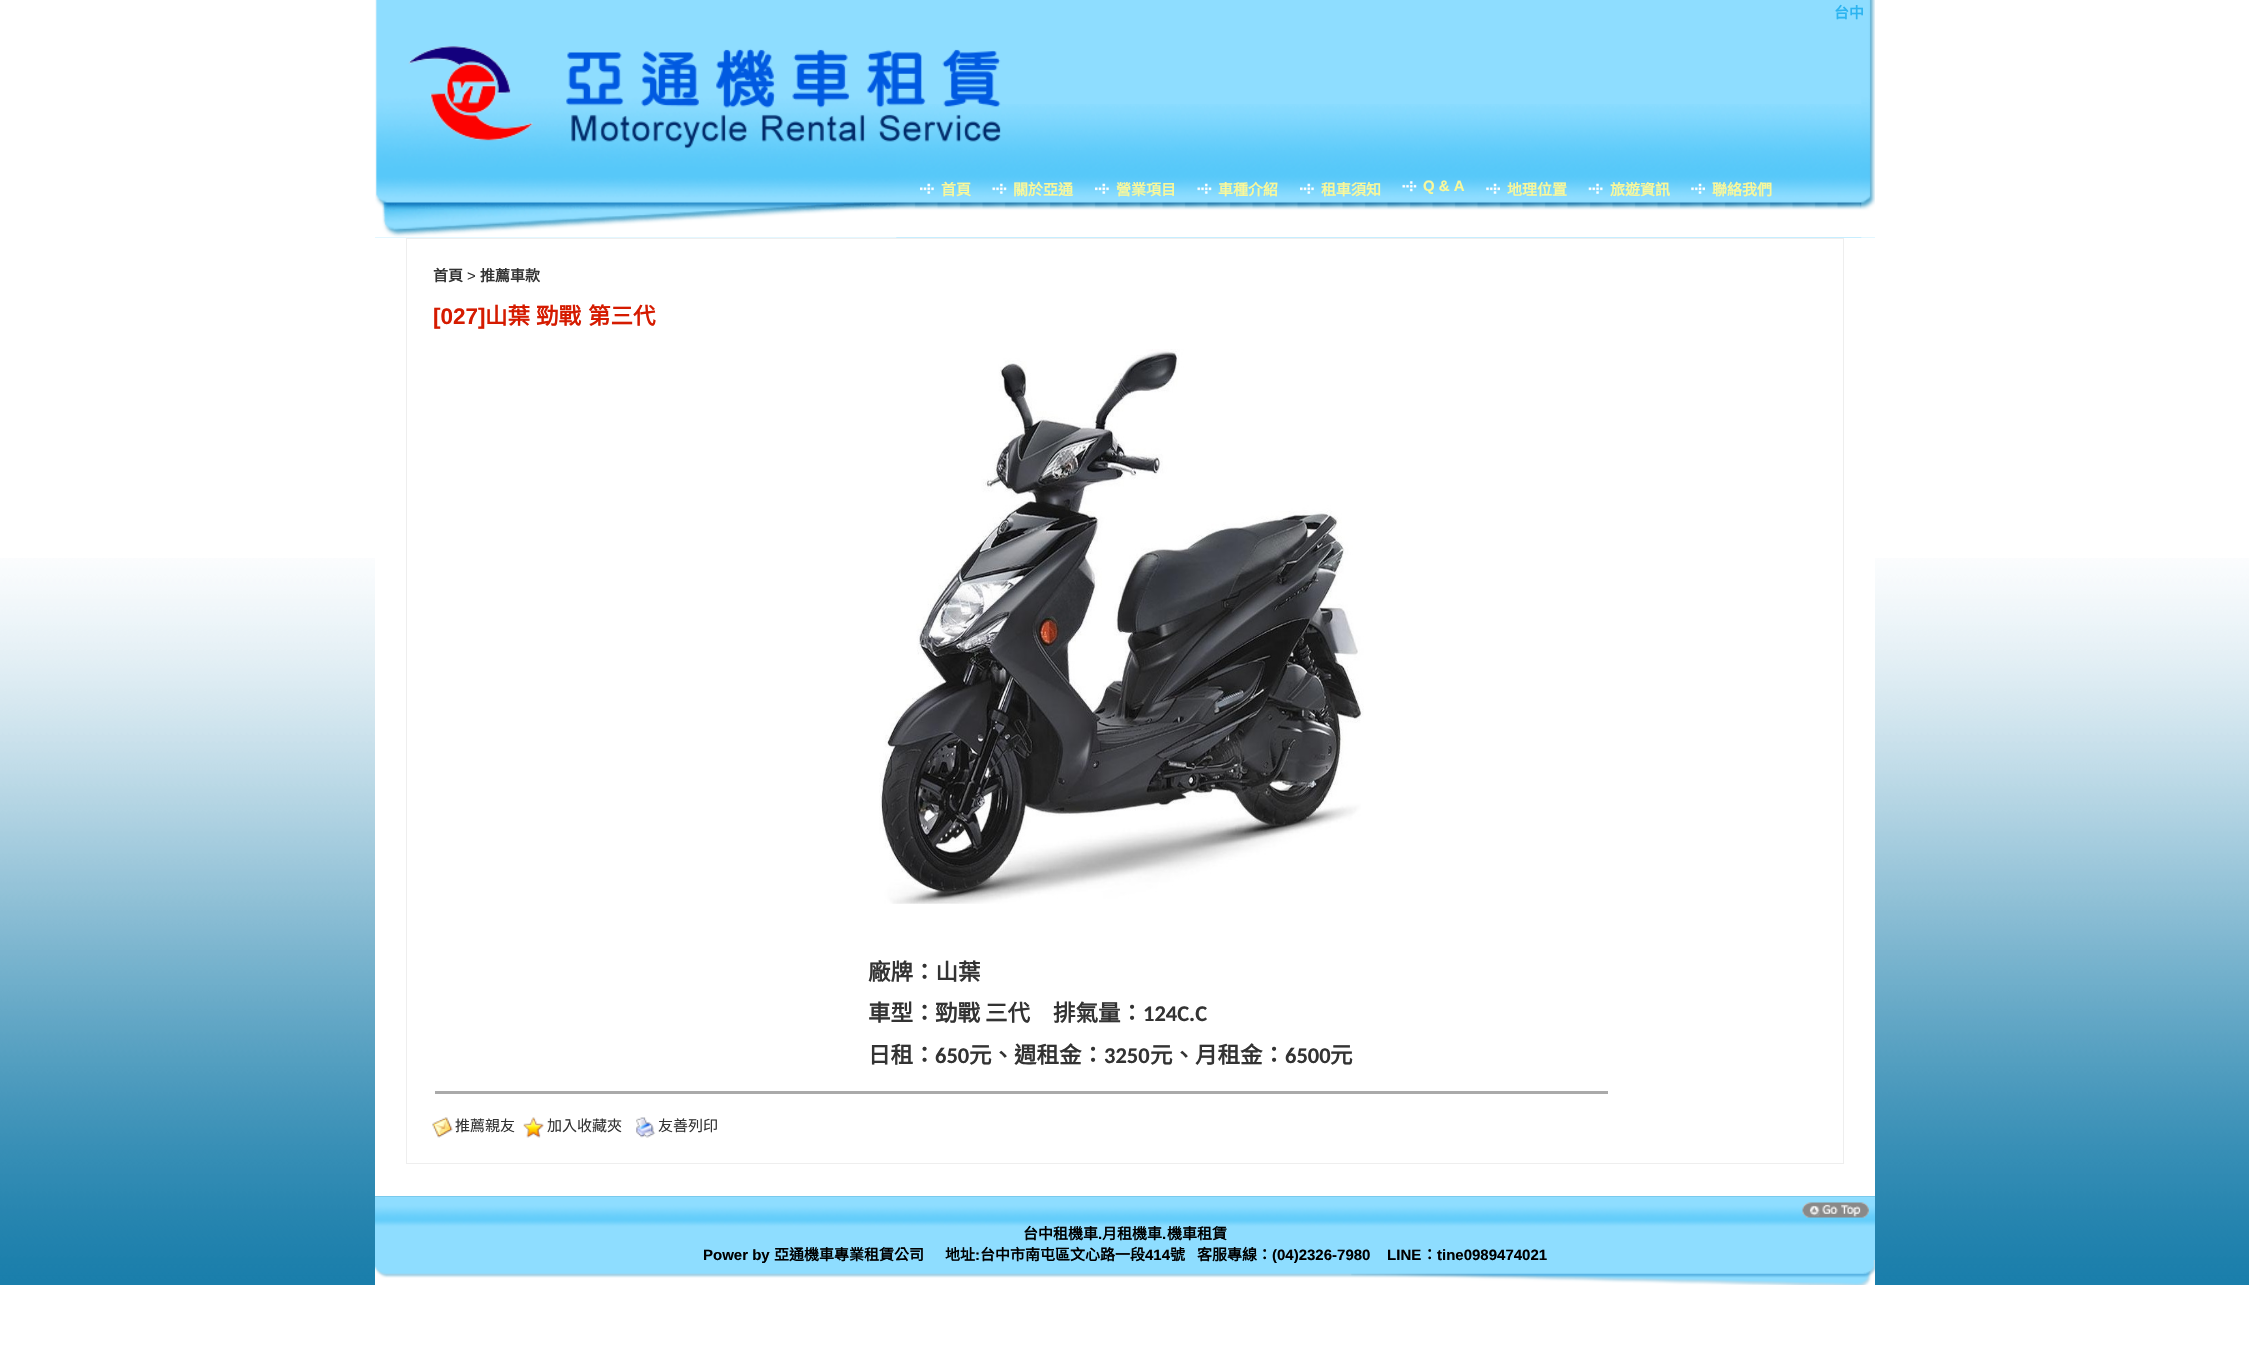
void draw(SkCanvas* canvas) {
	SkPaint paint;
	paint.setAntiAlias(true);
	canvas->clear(0xffffffff);
	canvas->drawImageRect(SkImages::DeferredFromEncodedData(SkData::MakeFromFileName("img1.png")), SkRect::MakeXYWH(0, 558, 2249, 727), SkSamplingOptions());
	paint.setColor(0xff8eddff);
	canvas->drawRect(SkRect::MakeXYWH(375, 0, 1500, 238), paint);
	canvas->drawImageRect(SkImages::DeferredFromEncodedData(SkData::MakeFromFileName("img2.png")), SkRect::MakeXYWH(375, 104, 1500, 134), SkSamplingOptions());
	canvas->drawImageRect(SkImages::DeferredFromEncodedData(SkData::MakeFromFileName("img3.png")), SkRect::MakeXYWH(1861, 0, 14, 238), SkSamplingOptions());
	canvas->drawImageRect(SkImages::DeferredFromEncodedData(SkData::MakeFromFileName("img4.png")), SkRect::MakeXYWH(375, 0, 522, 238), SkSamplingOptions());
	SkFont f1(fontMgr->matchFamilyStyle("Noto Sans CJK TC", SkFontStyle::Bold()), 15);
	f1.setSubpixel(true);
	paint.setColor(0xff2cb4f0);
	canvas->drawString("台中", 1834, 18, f1, paint);
	canvas->drawImageRect(SkImages::DeferredFromEncodedData(SkData::MakeFromFileName("img5.png")), SkRect::MakeXYWH(408, 46, 593, 103), SkSamplingOptions());
	canvas->drawImageRect(SkImages::DeferredFromEncodedData(SkData::MakeFromFileName("img6.png")), SkRect::MakeXYWH(920, 183, 14, 11), SkSamplingOptions());
	paint.setColor(0xfff9f89b);
	canvas->drawString("首頁", 941, 195, f1, paint);
	canvas->drawImageRect(SkImages::DeferredFromEncodedData(SkData::MakeFromFileName("img7.png")), SkRect::MakeXYWH(992, 183, 15, 11), SkSamplingOptions());
	canvas->drawString("關於亞通", 1013, 195, f1, paint);
	canvas->drawImageRect(SkImages::DeferredFromEncodedData(SkData::MakeFromFileName("img8.png")), SkRect::MakeXYWH(1095, 183, 14, 11), SkSamplingOptions());
	canvas->drawString("營業項目", 1116, 195, f1, paint);
	canvas->drawImageRect(SkImages::DeferredFromEncodedData(SkData::MakeFromFileName("img9.png")), SkRect::MakeXYWH(1197, 183, 15, 11), SkSamplingOptions());
	canvas->drawString("車種介紹", 1218, 195, f1, paint);
	canvas->drawImageRect(SkImages::DeferredFromEncodedData(SkData::MakeFromFileName("img10.png")), SkRect::MakeXYWH(1300, 183, 14, 11), SkSamplingOptions());
	canvas->drawString("租車須知", 1321, 195, f1, paint);
	canvas->drawImageRect(SkImages::DeferredFromEncodedData(SkData::MakeFromFileName("img11.png")), SkRect::MakeXYWH(1402, 181, 15, 11), SkSamplingOptions());
	SkFont f2(fontMgr->matchFamilyStyle("Liberation Sans", SkFontStyle::Bold()), 15);
	f2.setSubpixel(true);
	canvas->drawString("Q & A", 1423, 191, f2, paint);
	canvas->drawImageRect(SkImages::DeferredFromEncodedData(SkData::MakeFromFileName("img12.png")), SkRect::MakeXYWH(1486, 183, 14, 11), SkSamplingOptions());
	canvas->drawString("地理位置", 1507, 195, f1, paint);
	canvas->drawImageRect(SkImages::DeferredFromEncodedData(SkData::MakeFromFileName("img13.png")), SkRect::MakeXYWH(1588, 183, 15, 11), SkSamplingOptions());
	canvas->drawString("旅遊資訊", 1610, 195, f1, paint);
	canvas->drawImageRect(SkImages::DeferredFromEncodedData(SkData::MakeFromFileName("img14.png")), SkRect::MakeXYWH(1691, 183, 14, 11), SkSamplingOptions());
	canvas->drawString("聯絡我們", 1712, 195, f1, paint);
	paint.setColor(0xffffffff);
	canvas->drawRect(SkRect::MakeXYWH(375, 558, 1500, 638), paint);
	paint.setStroke(true);
	paint.setStrokeWidth(1);
	paint.setColor(0xffeeeeee);
	canvas->drawRect(SkRect::MakeXYWH(406.5, 238.5, 1437, 925), paint);
	paint.setStroke(false);
	paint.setColor(0xff333333);
	canvas->drawString("首頁", 433, 281, f1, paint);
	SkFont f3(fontMgr->matchFamilyStyle("Liberation Sans", SkFontStyle::Normal()), 15);
	f3.setSubpixel(true);
	canvas->drawString(">", 467, 281, f3, paint);
	canvas->drawString("推薦車款", 480, 281, f1, paint);
	SkFont f4(fontMgr->matchFamilyStyle("Liberation Sans", SkFontStyle::Bold()), 22.5);
	f4.setSubpixel(true);
	paint.setColor(0xffd51b00);
	canvas->drawString("[027]", 433, 324, f4, paint);
	SkFont f5(fontMgr->matchFamilyStyle("Noto Sans CJK TC", SkFontStyle::Bold()), 22.5);
	f5.setSubpixel(true);
	canvas->drawString("山葉", 485, 324, f5, paint);
	canvas->drawString("勁戰", 536, 324, f5, paint);
	canvas->drawString("第三代", 588, 324, f5, paint);
	canvas->drawImageRect(SkImages::DeferredFromEncodedData(SkData::MakeFromFileName("img15.png")), SkRect::MakeXYWH(879, 349, 485, 555), SkSamplingOptions());
	paint.setColor(0xff333333);
	canvas->drawString("廠牌：山葉", 868, 980, f5, paint);
	canvas->drawString("車型：", 868, 1021, f5, paint);
	canvas->drawString("勁戰 三代", 935, 1021, f5, paint);
	canvas->drawString("排氣量：", 1053, 1021, f5, paint);
	SkFont f6(fontMgr->matchFamilyStyle("Carlito", SkFontStyle::Bold()), 22.5);
	f6.setSubpixel(true);
	canvas->drawString("124C.C", 1143, 1021, f6, paint);
	canvas->drawString("日租：", 868, 1063, f5, paint);
	canvas->drawString("650", 935, 1063, f6, paint);
	canvas->drawString("元、週租金：", 969, 1063, f5, paint);
	canvas->drawString("3250", 1104, 1063, f6, paint);
	canvas->drawString("元、月租金：", 1150, 1063, f5, paint);
	canvas->drawString("6500", 1285, 1063, f6, paint);
	canvas->drawString("元", 1330, 1063, f5, paint);
	paint.setColor(0xffaaaaaa);
	canvas->drawRect(SkRect::MakeXYWH(435, 1091, 1173, 3), paint);
	canvas->drawImageRect(SkImages::DeferredFromEncodedData(SkData::MakeFromFileName("img16.png")), SkRect::MakeXYWH(432, 1117, 21, 21), SkSamplingOptions());
	SkFont f7(fontMgr->matchFamilyStyle("Noto Sans CJK TC", SkFontStyle::Normal()), 15);
	f7.setSubpixel(true);
	paint.setColor(0xff333333);
	canvas->drawString("推薦親友", 455, 1131, f7, paint);
	canvas->drawImageRect(SkImages::DeferredFromEncodedData(SkData::MakeFromFileName("img17.png")), SkRect::MakeXYWH(523, 1117, 21, 21), SkSamplingOptions());
	canvas->drawString("加入收藏夾", 547, 1131, f7, paint);
	canvas->drawImageRect(SkImages::DeferredFromEncodedData(SkData::MakeFromFileName("img18.png")), SkRect::MakeXYWH(636, 1117, 20, 21), SkSamplingOptions());
	canvas->drawString("友善列印", 658, 1131, f7, paint);
	canvas->drawImageRect(SkImages::DeferredFromEncodedData(SkData::MakeFromFileName("img19.png")), SkRect::MakeXYWH(375, 1196, 1500, 77), SkSamplingOptions());
	canvas->drawImageRect(SkImages::DeferredFromEncodedData(SkData::MakeFromFileName("img20.png")), SkRect::MakeXYWH(375, 1273, 977, 12), SkSamplingOptions());
	canvas->drawImageRect(SkImages::DeferredFromEncodedData(SkData::MakeFromFileName("img21.png")), SkRect::MakeXYWH(375, 1266, 11, 12), SkSamplingOptions());
	canvas->drawImageRect(SkImages::DeferredFromEncodedData(SkData::MakeFromFileName("img22.png")), SkRect::MakeXYWH(1351, 1260, 524, 25), SkSamplingOptions());
	canvas->drawImageRect(SkImages::DeferredFromEncodedData(SkData::MakeFromFileName("img23.png")), SkRect::MakeXYWH(1802, 1202, 67, 16), SkSamplingOptions());
	paint.setColor(0xff000000);
	canvas->drawString("台中租機車", 1023, 1239, f1, paint);
	canvas->drawString(".", 1098, 1239, f2, paint);
	canvas->drawString("月租機車", 1102, 1239, f1, paint);
	canvas->drawString(".", 1162, 1239, f2, paint);
	canvas->drawString("機車租賃", 1167, 1239, f1, paint);
	canvas->drawString("Power by", 703, 1260, f2, paint);
	canvas->drawString("亞通機車專業租賃公司", 774, 1260, f1, paint);
	canvas->drawString("地址", 945, 1260, f1, paint);
	canvas->drawString(":", 975, 1260, f2, paint);
	canvas->drawString("台中市南屯區文心路一段", 980, 1260, f1, paint);
	canvas->drawString("414", 1145, 1260, f2, paint);
	canvas->drawString("號", 1170, 1260, f1, paint);
	canvas->drawString("客服專線：", 1197, 1260, f1, paint);
	canvas->drawString("(04)2326-7980    LINE", 1272, 1260, f2, paint);
	canvas->drawString("：", 1422, 1260, f1, paint);
	canvas->drawString("tine0989474021", 1437, 1260, f2, paint);
}
